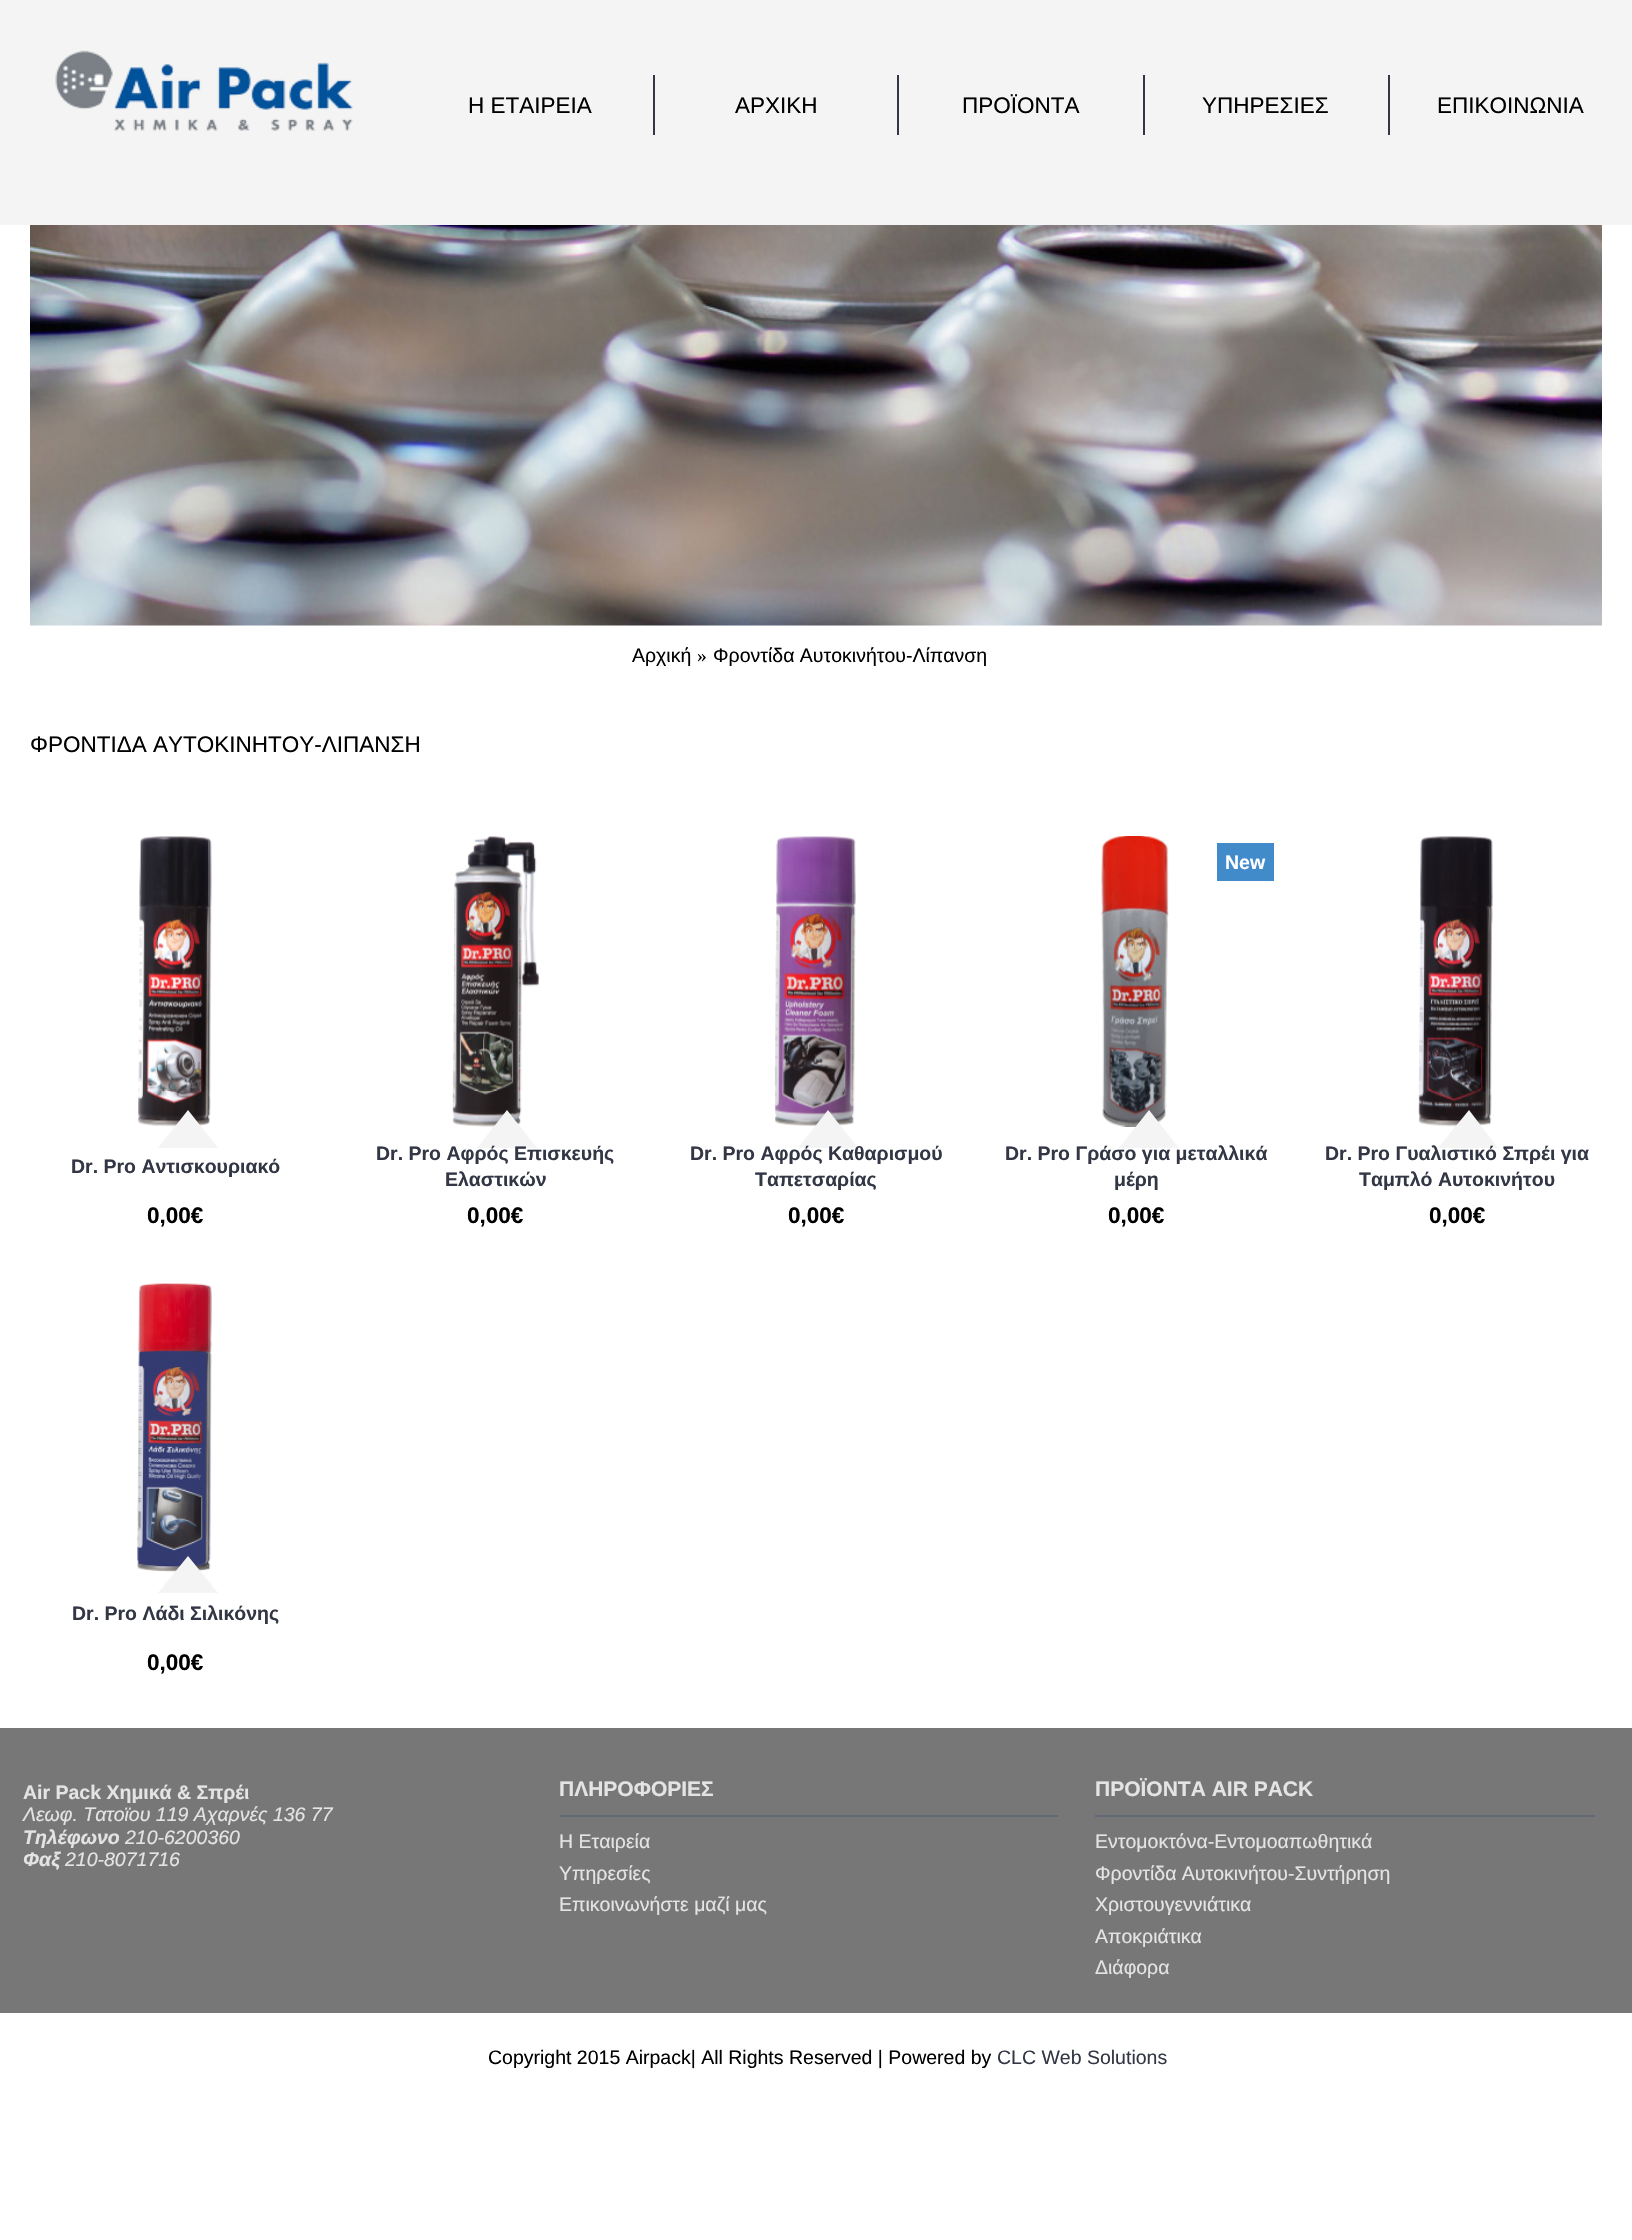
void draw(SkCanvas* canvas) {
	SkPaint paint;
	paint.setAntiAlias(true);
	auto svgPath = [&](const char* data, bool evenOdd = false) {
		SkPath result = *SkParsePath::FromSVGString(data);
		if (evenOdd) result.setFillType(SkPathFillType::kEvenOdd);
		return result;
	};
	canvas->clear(0xffffffff);
	paint.setColor(0xfff4f4f4);
	canvas->drawRect(SkRect::MakeXYWH(0, 0, 1632, 225), paint);
	canvas->drawImageRect(SkImages::DeferredFromEncodedData(SkData::MakeFromFileName("img1.png")), SkRect::MakeXYWH(55, 50, 298, 81), SkSamplingOptions());
	SkFont f1(fontMgr->matchFamilyStyle("Liberation Sans", SkFontStyle::Normal()), 22.5);
	f1.setSubpixel(true);
	paint.setColor(0xff000000);
	canvas->drawString("Η ΕΤΑΙΡΕΙΑ", 468, 113, f1, paint);
	paint.setColor(0xff333745);
	canvas->drawRect(SkRect::MakeXYWH(653, 75, 2, 60), paint);
	paint.setColor(0xff000000);
	canvas->drawString("ΑΡΧΙΚΗ", 735, 113, f1, paint);
	paint.setColor(0xff333745);
	canvas->drawRect(SkRect::MakeXYWH(897, 75, 2, 60), paint);
	paint.setColor(0xff000000);
	canvas->drawString("ΠΡΟΪΟΝΤΑ", 962, 113, f1, paint);
	paint.setColor(0xff333745);
	canvas->drawRect(SkRect::MakeXYWH(1143, 75, 2, 60), paint);
	paint.setColor(0xff000000);
	canvas->drawString("ΥΠΗΡΕΣΙΕΣ", 1202, 113, f1, paint);
	paint.setColor(0xff333745);
	canvas->drawRect(SkRect::MakeXYWH(1388, 75, 2, 60), paint);
	paint.setColor(0xff000000);
	canvas->drawString("ΕΠΙΚΟΙΝΩΝΙΑ", 1437, 113, f1, paint);
	canvas->drawImageRect(SkImages::DeferredFromEncodedData(SkData::MakeFromFileName("img2.png")), SkRect::MakeXYWH(30, 225, 1572, 401), SkSamplingOptions());
	SkFont f2(fontMgr->matchFamilyStyle("Liberation Sans", SkFontStyle::Normal()), 19.5);
	f2.setSubpixel(true);
	canvas->drawString("Αρχική", 632, 662, f2, paint);
	SkFont f3(fontMgr->matchFamilyStyle("Liberation Serif", SkFontStyle::Normal()), 19.5);
	f3.setSubpixel(true);
	canvas->drawString("»", 697, 662, f3, paint);
	canvas->drawString("Φροντίδα Αυτοκινήτου-Λίπανση", 713, 662, f2, paint);
	canvas->drawString("ΦΡΟΝΤΙΔΑ ΑΥΤΟΚΙΝΗΤΟΥ-ΛΙΠΑΝΣΗ", 30, 752, f1, paint);
	canvas->drawImageRect(SkImages::DeferredFromEncodedData(SkData::MakeFromFileName("img3.png")), SkRect::MakeXYWH(138, 836, 74, 291), SkSamplingOptions());
	paint.setColor(0xfff4f4f4);
	canvas->drawPath(svgPath("M158 1148H218L188 1110Z"), paint);
	SkFont f4(fontMgr->matchFamilyStyle("Liberation Sans", SkFontStyle::Bold()), 19.5);
	f4.setSubpixel(true);
	paint.setColor(0xff333745);
	canvas->drawString("Dr. Pro Αντισκουριακό", 71, 1173, f4, paint);
	SkFont f5(fontMgr->matchFamilyStyle("Liberation Sans", SkFontStyle::Bold()), 22.5);
	f5.setSubpixel(true);
	paint.setColor(0xff000000);
	canvas->drawString("0,00€", 147, 1223, f5, paint);
	canvas->drawImageRect(SkImages::DeferredFromEncodedData(SkData::MakeFromFileName("img4.png")), SkRect::MakeXYWH(452, 836, 88, 291), SkSamplingOptions());
	paint.setColor(0xfff4f4f4);
	canvas->drawPath(svgPath("M477 1148H537L507 1110Z"), paint);
	paint.setColor(0xff333745);
	canvas->drawString("Dr. Pro Αφρός Επισκευής", 376, 1160, f4, paint);
	canvas->drawString("Ελαστικών", 445, 1186, f4, paint);
	paint.setColor(0xff000000);
	canvas->drawString("0,00€", 467, 1223, f5, paint);
	canvas->drawImageRect(SkImages::DeferredFromEncodedData(SkData::MakeFromFileName("img5.png")), SkRect::MakeXYWH(774, 836, 82, 291), SkSamplingOptions());
	paint.setColor(0xfff4f4f4);
	canvas->drawPath(svgPath("M798 1148H858L828 1110Z"), paint);
	paint.setColor(0xff333745);
	canvas->drawString("Dr. Pro Αφρός Καθαρισμού", 690, 1160, f4, paint);
	canvas->drawString("Ταπετσαρίας", 755, 1186, f4, paint);
	paint.setColor(0xff000000);
	canvas->drawString("0,00€", 788, 1223, f5, paint);
	canvas->drawImageRect(SkImages::DeferredFromEncodedData(SkData::MakeFromFileName("img6.png")), SkRect::MakeXYWH(1101, 836, 68, 291), SkSamplingOptions());
	paint.setColor(0xff428bca);
	canvas->drawRect(SkRect::MakeXYWH(1217, 843, 57, 38), paint);
	paint.setColor(0xffffffff);
	canvas->drawString("New", 1225, 869, f4, paint);
	paint.setColor(0xfff4f4f4);
	canvas->drawPath(svgPath("M1119 1148H1179L1149 1110Z"), paint);
	paint.setColor(0xff333745);
	canvas->drawString("Dr. Pro Γράσο για μεταλλικά", 1005, 1160, f4, paint);
	canvas->drawString("μέρη", 1114, 1186, f4, paint);
	paint.setColor(0xff000000);
	canvas->drawString("0,00€", 1108, 1223, f5, paint);
	canvas->drawImageRect(SkImages::DeferredFromEncodedData(SkData::MakeFromFileName("img7.png")), SkRect::MakeXYWH(1418, 836, 75, 291), SkSamplingOptions());
	paint.setColor(0xfff4f4f4);
	canvas->drawPath(svgPath("M1438 1148H1498L1469 1110Z"), paint);
	paint.setColor(0xff333745);
	canvas->drawString("Dr. Pro Γυαλιστικό Σπρέι για", 1325, 1160, f4, paint);
	canvas->drawString("Ταμπλό Αυτοκινήτου", 1359, 1186, f4, paint);
	paint.setColor(0xff000000);
	canvas->drawString("0,00€", 1429, 1223, f5, paint);
	canvas->drawImageRect(SkImages::DeferredFromEncodedData(SkData::MakeFromFileName("img8.png")), SkRect::MakeXYWH(137, 1283, 75, 289), SkSamplingOptions());
	paint.setColor(0xfff4f4f4);
	canvas->drawPath(svgPath("M158 1593H218L188 1556Z"), paint);
	paint.setColor(0xff333745);
	canvas->drawString("Dr. Pro Λάδι Σιλικόνης", 72, 1620, f4, paint);
	paint.setColor(0xff000000);
	canvas->drawString("0,00€", 147, 1670, f5, paint);
	paint.setColor(0xff777777);
	canvas->drawRect(SkRect::MakeXYWH(0, 1728, 1632, 285), paint);
	paint.setColor(0xffe4e4e4);
	canvas->drawString("Air Pack Χημικά & Σπρέι", 23, 1799, f4, paint);
	SkFont f6(fontMgr->matchFamilyStyle("Liberation Sans", SkFontStyle::Italic()), 19.5);
	f6.setSubpixel(true);
	canvas->drawString("Λεωφ. Τατοϊου 119 Αχαρνές 136 77", 23, 1821, f6, paint);
	SkFont f7(fontMgr->matchFamilyStyle("Liberation Sans", SkFontStyle::BoldItalic()), 19.5);
	f7.setSubpixel(true);
	canvas->drawString("Τηλέφωνο", 23, 1844, f7, paint);
	canvas->drawString("210-6200360", 125, 1844, f6, paint);
	canvas->drawString("Φαξ", 23, 1866, f7, paint);
	canvas->drawString("210-8071716", 65, 1866, f6, paint);
	paint.setColor(0xff5f6874);
	canvas->drawRect(SkRect::MakeXYWH(560, 1815, 498, 2), paint);
	SkFont f8(fontMgr->matchFamilyStyle("Liberation Sans", SkFontStyle::Bold()), 21);
	f8.setSubpixel(true);
	paint.setColor(0xffe4e4e4);
	canvas->drawString("ΠΛΗΡΟΦΟΡΙΕΣ", 559, 1796, f8, paint);
	canvas->drawString("Η Εταιρεία", 559, 1848, f2, paint);
	canvas->drawString("Υπηρεσίες", 559, 1880, f2, paint);
	canvas->drawString("Επικοινωνήστε μαζί μας", 559, 1911, f2, paint);
	paint.setColor(0xff5f6874);
	canvas->drawRect(SkRect::MakeXYWH(1095, 1815, 500, 2), paint);
	paint.setColor(0xffe4e4e4);
	canvas->drawString("ΠΡΟΪΟΝΤΑ AIR PACK", 1095, 1796, f8, paint);
	canvas->drawString("Εντομοκτόνα-Εντομοαπωθητικά", 1095, 1848, f2, paint);
	canvas->drawString("Φροντίδα Αυτοκινήτου-Συντήρηση", 1095, 1880, f2, paint);
	canvas->drawString("Χριστουγεννιάτικα", 1095, 1911, f2, paint);
	canvas->drawString("Αποκριάτικα", 1095, 1943, f2, paint);
	canvas->drawString("Διάφορα", 1095, 1974, f2, paint);
	paint.setColor(0xff000000);
	canvas->drawString("Copyright 2015 Airpack| All Rights Reserved | Powered by", 488, 2064, f2, paint);
	paint.setColor(0xff333745);
	canvas->drawString("CLC Web Solutions", 997, 2064, f2, paint);
}
